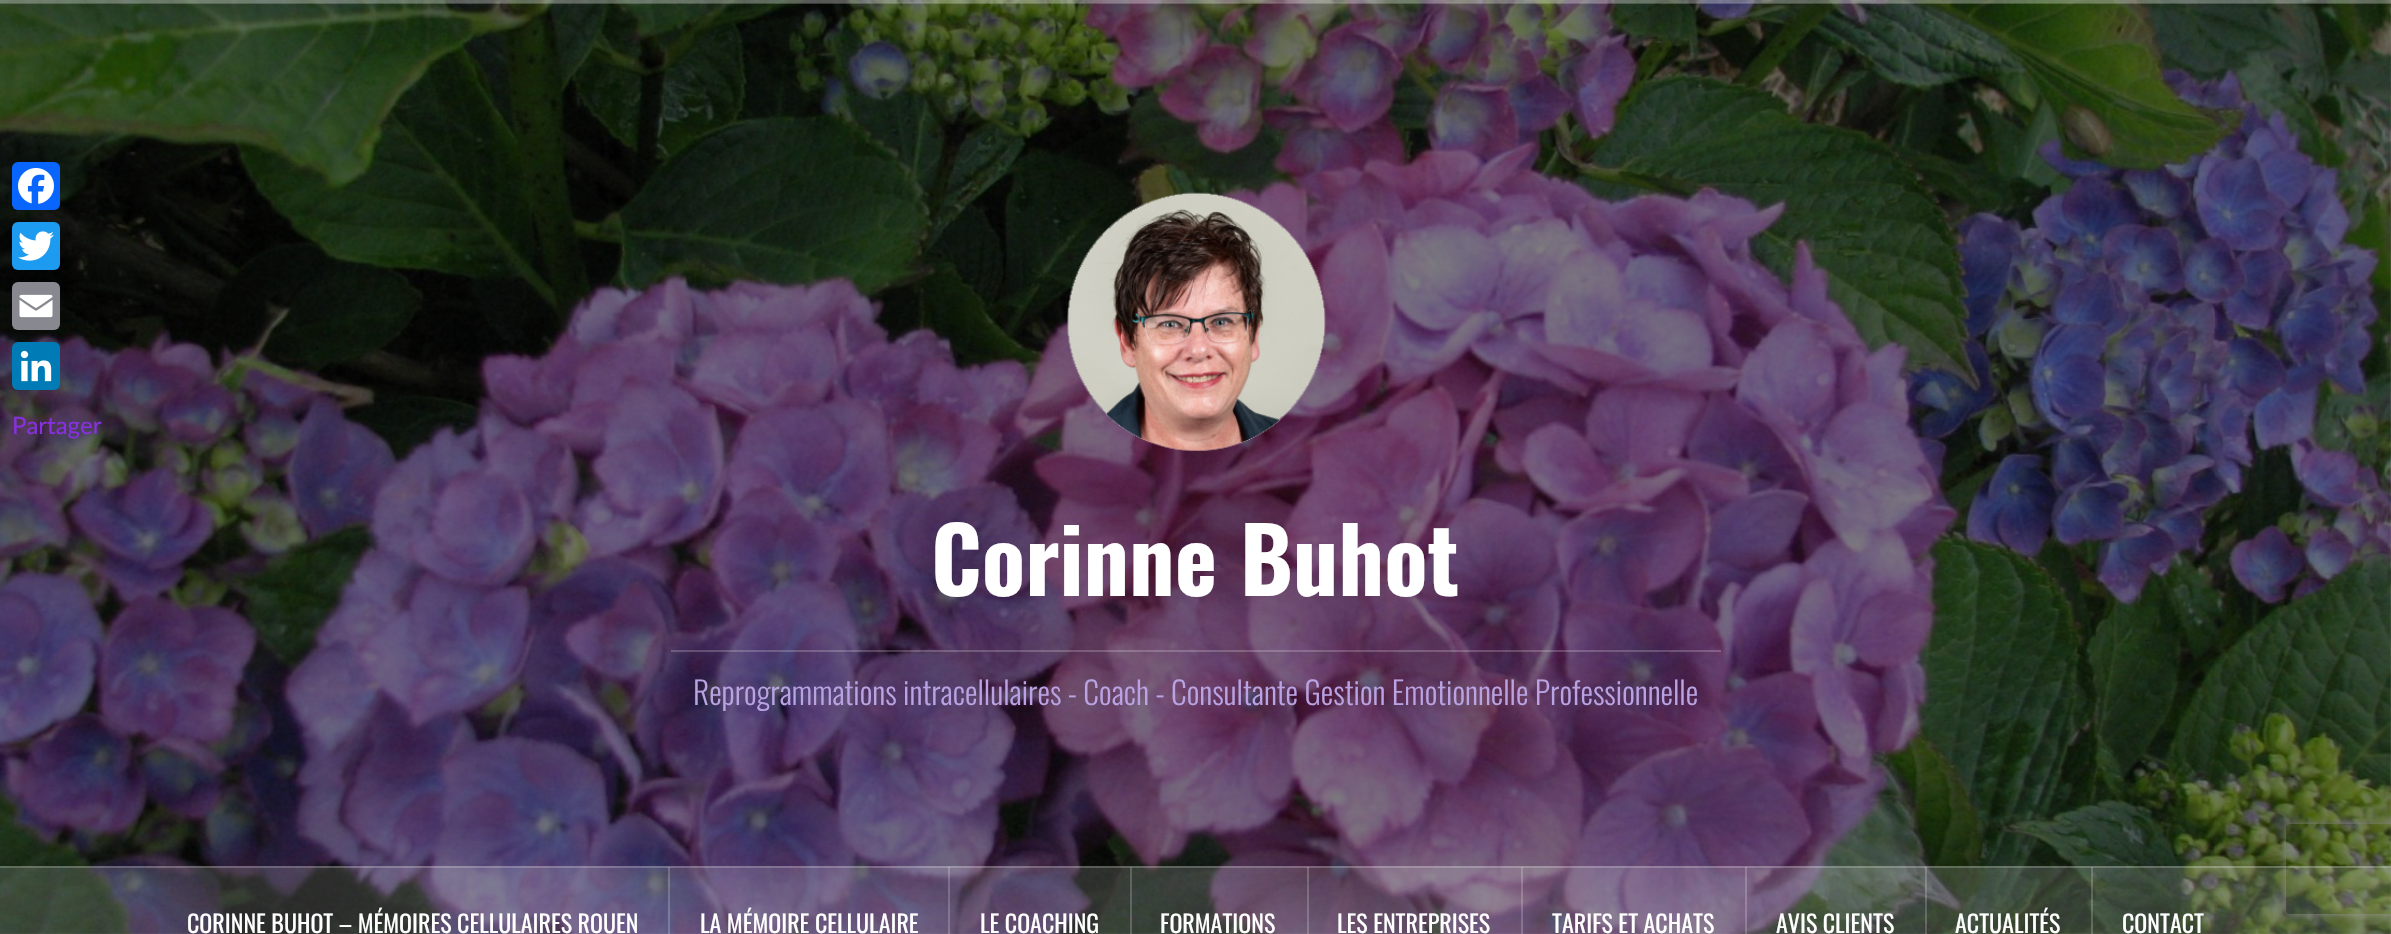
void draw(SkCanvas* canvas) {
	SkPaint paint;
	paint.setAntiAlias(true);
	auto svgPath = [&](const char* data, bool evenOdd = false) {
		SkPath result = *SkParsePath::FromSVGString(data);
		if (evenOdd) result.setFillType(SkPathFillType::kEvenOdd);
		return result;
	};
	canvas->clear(0xffffffff);
	canvas->drawImageRect(SkImages::DeferredFromEncodedData(SkData::MakeFromFileName("img5.png")), SkRect::MakeXYWH(0, 0, 2391, 934), SkSamplingOptions());
	paint.setColor(0xff0866ff);
	canvas->drawRoundRect(SkRect::MakeXYWH(12, 162, 48, 48), 6, 6, paint);
	canvas->drawImageRect(SkImages::DeferredFromEncodedData(SkData::MakeFromFileName("img1.png")), SkRect::MakeXYWH(18, 168, 36, 36), SkSamplingOptions());
	paint.setColor(0xff1d9bf0);
	canvas->drawRoundRect(SkRect::MakeXYWH(12, 222, 48, 48), 6, 6, paint);
	canvas->drawImageRect(SkImages::DeferredFromEncodedData(SkData::MakeFromFileName("img2.png")), SkRect::MakeXYWH(18, 231, 36, 30), SkSamplingOptions());
	paint.setColor(0xff888990);
	canvas->drawRoundRect(SkRect::MakeXYWH(12, 282, 48, 48), 6, 6, paint);
	canvas->drawImageRect(SkImages::DeferredFromEncodedData(SkData::MakeFromFileName("img3.png")), SkRect::MakeXYWH(19, 294, 34, 24), SkSamplingOptions());
	paint.setColor(0xff007bb5);
	canvas->drawRoundRect(SkRect::MakeXYWH(12, 342, 48, 48), 6, 6, paint);
	canvas->drawImageRect(SkImages::DeferredFromEncodedData(SkData::MakeFromFileName("img4.png")), SkRect::MakeXYWH(20, 350, 32, 32), SkSamplingOptions());
	SkFont f1(fontMgr->matchFamilyStyle("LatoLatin", SkFontStyle::Normal()), 24);
	f1.setSubpixel(true);
	paint.setColor(0xff892fe2);
	canvas->drawString("Partager", 12, 434, f1, paint);
	paint.setColor(0x26ffffff);
	canvas->drawRect(SkRect::MakeXYWH(0, 0, 2391, 3), paint);
	paint.setColor(0x33ffffff);
	canvas->drawRect(SkRect::MakeXYWH(0, 0, 2391, 2), paint);
	canvas->drawRect(SkRect::MakeXYWH(0, 2, 2391, 2), paint);
	canvas->drawImageRect(SkImages::DeferredFromEncodedData(SkData::MakeFromFileName("img6.png")), SkRect::MakeXYWH(1067, 192, 259, 259), SkSamplingOptions());
	SkFont f2(fontMgr->matchFamilyStyle("Oswald", SkFontStyle::Bold()), 90);
	f2.setSubpixel(true);
	paint.setColor(0xffffffff);
	canvas->drawString("Corinne Buhot", 931, 596, f2, paint);
	paint.setColor(0x33ffffff);
	canvas->drawRect(SkRect::MakeXYWH(671, 650, 1050, 2), paint);
	SkFont f3(fontMgr->matchFamilyStyle("Oswald", SkFontStyle(300, SkFontStyle::kNormal_Width, SkFontStyle::kUpright_Slant)), 31.5);
	f3.setSubpixel(true);
	paint.setColor(0xffb9a3e2);
	canvas->drawString("Reprogrammations intracellulaires - Coach - Consultante Gestion Emotionnelle Professionnelle", 693, 705, f3, paint);
	canvas->save();
	canvas->clipPath(svgPath("M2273 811H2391V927H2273ZM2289 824H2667C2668.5 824 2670 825.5 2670 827V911C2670 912.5 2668.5 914 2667 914H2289C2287.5 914 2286 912.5 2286 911V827C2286 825.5 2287.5 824 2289 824Z", true), true);
	paint.setColor(0xff808080);
	paint.setMaskFilter(SkMaskFilter::MakeBlur(kNormal_SkBlurStyle, 4));
	canvas->drawRoundRect(SkRect::MakeXYWH(2286, 824, 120, 90), 3, 3, paint);
	paint.setMaskFilter(nullptr);
	canvas->restore();
	paint.setColor(0x26ffffff);
	canvas->drawRect(SkRect::MakeXYWH(0, 866, 2391, 68), paint);
	paint.setColor(0x33ffffff);
	canvas->drawRect(SkRect::MakeXYWH(0, 866, 2391, 2), paint);
	canvas->drawRect(SkRect::MakeXYWH(668, 867, 2, 67), paint);
	SkFont f4(fontMgr->matchFamilyStyle("Oswald", SkFontStyle::Normal()), 24);
	f4.setSubpixel(true);
	paint.setColor(0xffffffff);
	canvas->drawString("CORINNE BUHOT – MÉMOIRES CELLULAIRES ROUEN", 187, 933, f4, paint);
	paint.setColor(0x33ffffff);
	canvas->drawRect(SkRect::MakeXYWH(948, 867, 2, 67), paint);
	paint.setColor(0xffffffff);
	canvas->drawString("LA MÉMOIRE CELLULAIRE", 700, 933, f4, paint);
	paint.setColor(0x33ffffff);
	canvas->drawRect(SkRect::MakeXYWH(1130, 867, 2, 67), paint);
	paint.setColor(0xffffffff);
	canvas->drawString("LE COACHING", 980, 933, f4, paint);
	paint.setColor(0x33ffffff);
	canvas->drawRect(SkRect::MakeXYWH(1307, 867, 2, 67), paint);
	paint.setColor(0xffffffff);
	canvas->drawString("FORMATIONS", 1160, 933, f4, paint);
	paint.setColor(0x33ffffff);
	canvas->drawRect(SkRect::MakeXYWH(1521, 867, 2, 67), paint);
	paint.setColor(0xffffffff);
	canvas->drawString("LES ENTREPRISES", 1337, 933, f4, paint);
	paint.setColor(0x33ffffff);
	canvas->drawRect(SkRect::MakeXYWH(1745, 867, 2, 67), paint);
	paint.setColor(0xffffffff);
	canvas->drawString("TARIFS ET ACHATS", 1552, 933, f4, paint);
	paint.setColor(0x33ffffff);
	canvas->drawRect(SkRect::MakeXYWH(1925, 867, 2, 67), paint);
	paint.setColor(0xffffffff);
	canvas->drawString("AVIS CLIENTS", 1776, 933, f4, paint);
	paint.setColor(0x33ffffff);
	canvas->drawRect(SkRect::MakeXYWH(2091, 867, 2, 67), paint);
	paint.setColor(0xffffffff);
	canvas->drawString("ACTUALITÉS", 1955, 933, f4, paint);
	canvas->drawString("CONTACT", 2122, 933, f4, paint);
}
